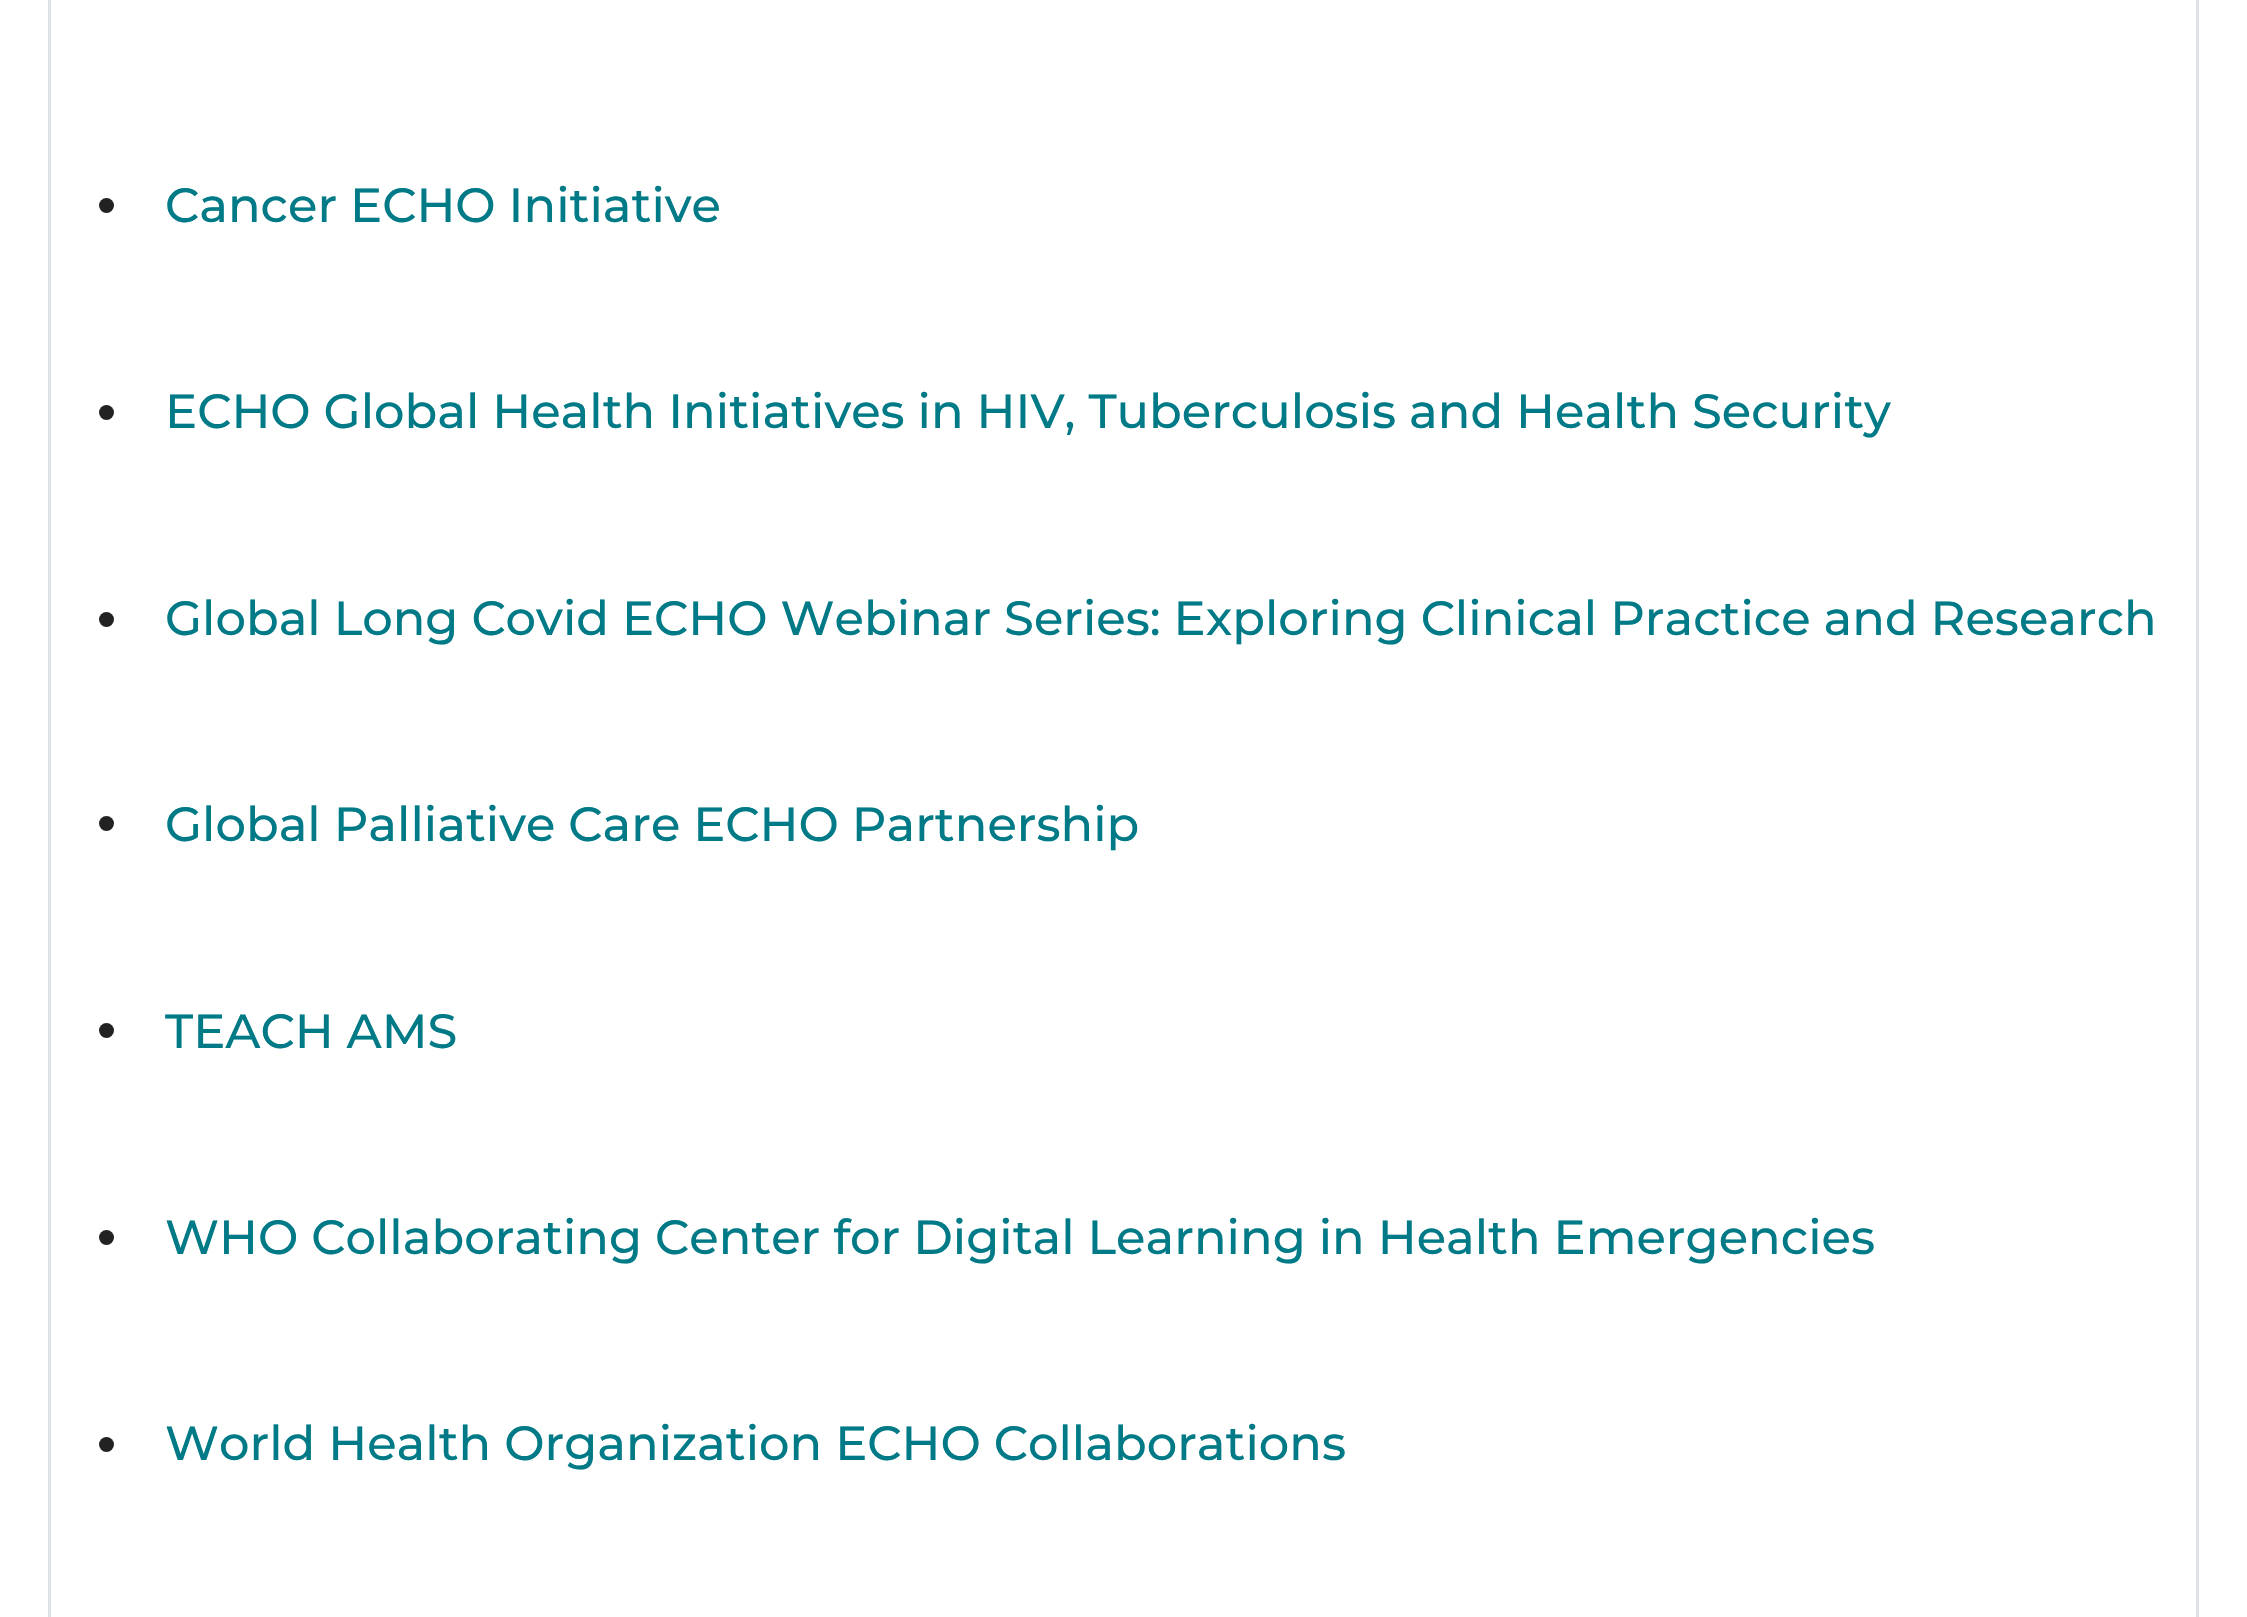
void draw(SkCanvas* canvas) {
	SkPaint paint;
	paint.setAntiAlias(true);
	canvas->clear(0xffffffff);
	paint.setStroke(true);
	paint.setStrokeWidth(3);
	paint.setColor(0xffdee2e6);
	canvas->drawRect(SkRect::MakeXYWH(49.5, -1.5, 2148, 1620), paint);
	paint.setStroke(false);
	paint.setColor(0xff222222);
	canvas->drawCircle(106.5, 205.5, 7.5, paint);
	SkFont f1(fontMgr->matchFamilyStyle("Montserrat", SkFontStyle(500, SkFontStyle::kNormal_Width, SkFontStyle::kUpright_Slant)), 48);
	f1.setSubpixel(true);
	paint.setColor(0xff007a86);
	canvas->drawString("Cancer ECHO Initiative", 165, 222, f1, paint);
	paint.setColor(0xff222222);
	canvas->drawCircle(106.5, 412.5, 7.5, paint);
	paint.setColor(0xff007a86);
	canvas->drawString("ECHO Global Health Initiatives in HIV, Tuberculosis and Health Security", 165, 428, f1, paint);
	paint.setColor(0xff222222);
	canvas->drawCircle(106.5, 619.5, 7.5, paint);
	paint.setColor(0xff007a86);
	canvas->drawString("Global Long Covid ECHO Webinar Series: Exploring Clinical Practice and Research", 165, 635, f1, paint);
	paint.setColor(0xff222222);
	canvas->drawCircle(106.5, 823.5, 7.5, paint);
	paint.setColor(0xff007a86);
	canvas->drawString("Global Palliative Care ECHO Partnership", 165, 841, f1, paint);
	paint.setColor(0xff222222);
	canvas->drawCircle(106.5, 1030.5, 7.5, paint);
	paint.setColor(0xff007a86);
	canvas->drawString("TEACH AMS", 165, 1048, f1, paint);
	paint.setColor(0xff222222);
	canvas->drawCircle(106.5, 1237.5, 7.5, paint);
	paint.setColor(0xff007a86);
	canvas->drawString("WHO Collaborating Center for Digital Learning in Health Emergencies", 165, 1254, f1, paint);
	paint.setColor(0xff222222);
	canvas->drawCircle(106.5, 1444.5, 7.5, paint);
	paint.setColor(0xff007a86);
	canvas->drawString("World Health Organization ECHO Collaborations", 165, 1460, f1, paint);
}
